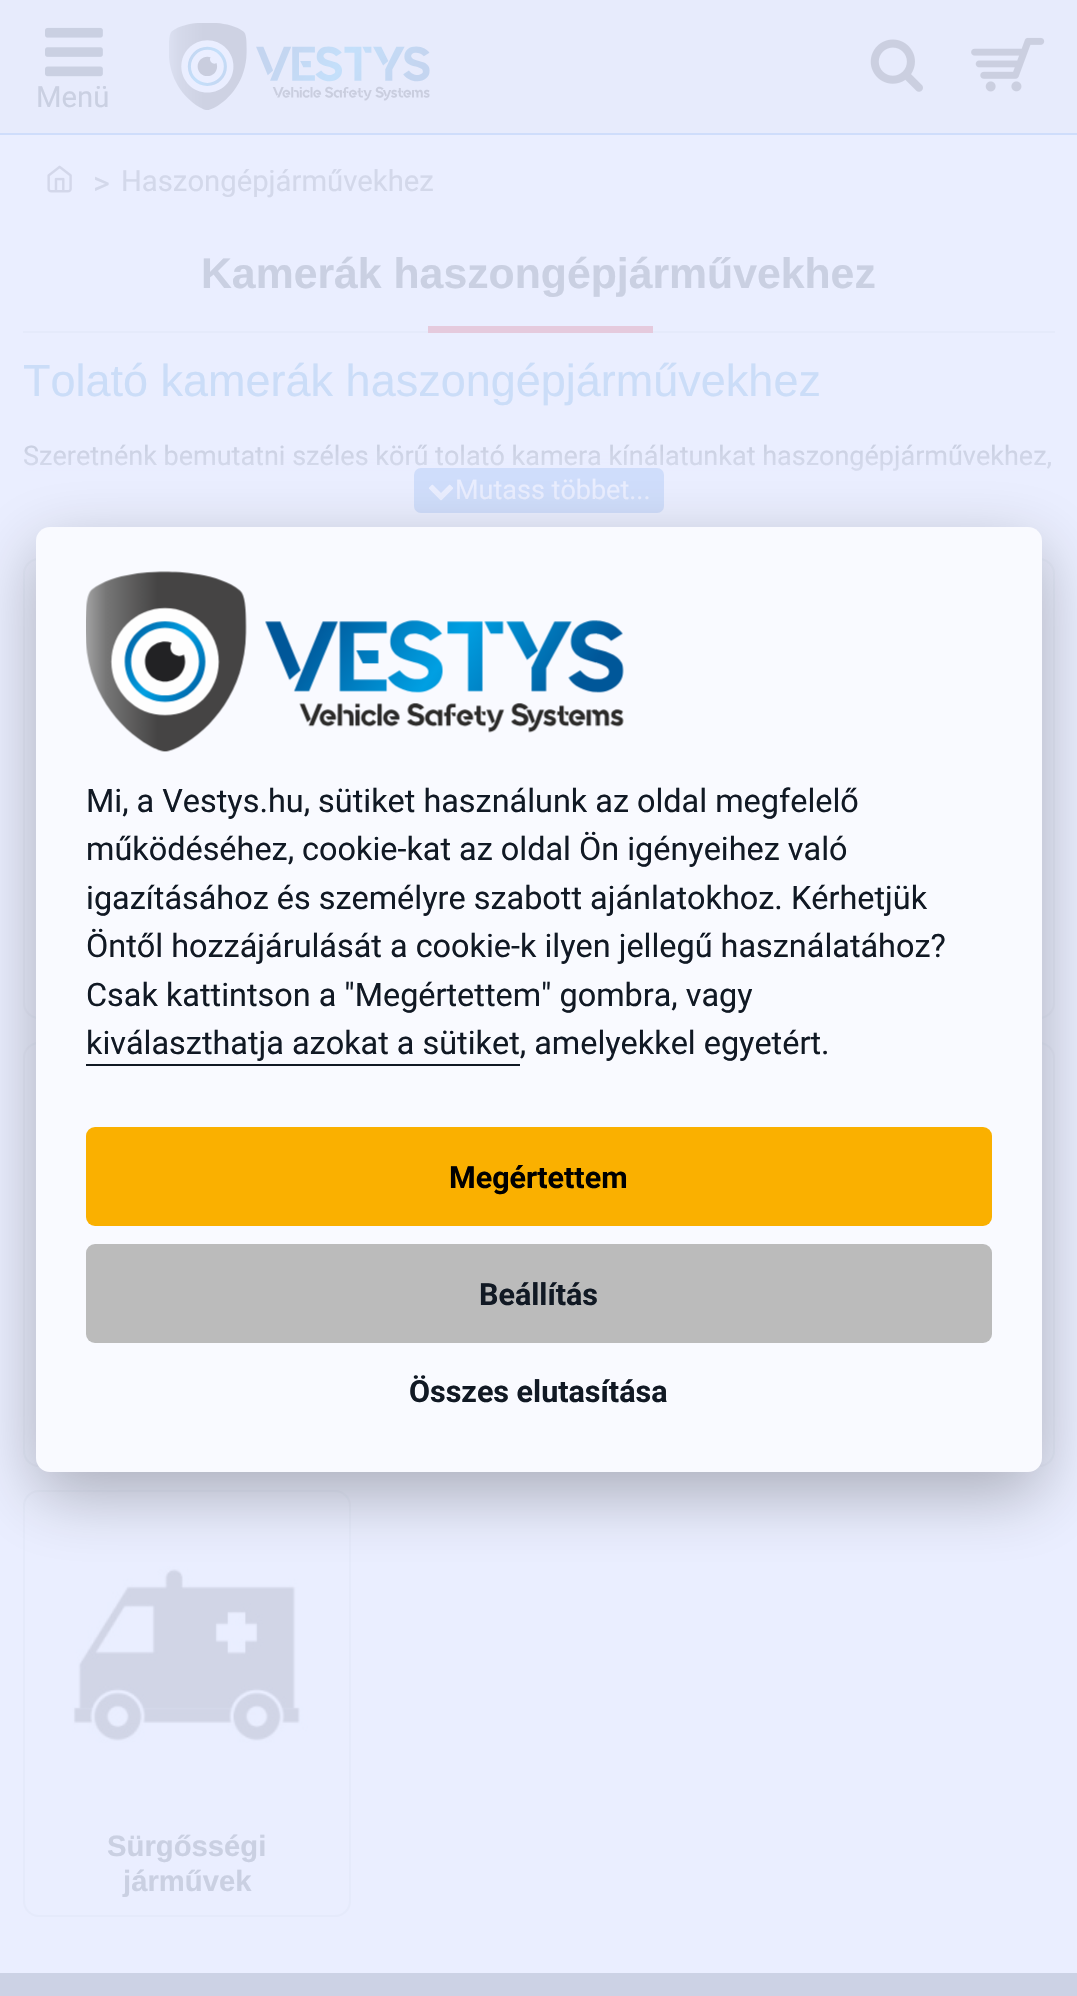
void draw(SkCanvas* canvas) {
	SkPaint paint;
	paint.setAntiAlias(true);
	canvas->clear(0xffeaeeff);
	paint.setColor(0xffe7ebfc);
	canvas->drawRect(SkRect::MakeXYWH(0, 0, 1077, 133), paint);
	paint.setColor(0xffcfddfb);
	canvas->drawRect(SkRect::MakeXYWH(0, 133, 1077, 2), paint);
	canvas->drawImageRect(SkImages::DeferredFromEncodedData(SkData::MakeFromFileName("img1.png")), SkRect::MakeXYWH(870, 39, 53, 53), SkSamplingOptions());
	canvas->drawImageRect(SkImages::DeferredFromEncodedData(SkData::MakeFromFileName("img2.png")), SkRect::MakeXYWH(971, 37, 74, 55), SkSamplingOptions());
	canvas->drawImageRect(SkImages::DeferredFromEncodedData(SkData::MakeFromFileName("img3.png")), SkRect::MakeXYWH(45, 27, 58, 50), SkSamplingOptions());
	SkFont f1(fontMgr->matchFamilyStyle("Roboto", SkFontStyle::Normal()), 29.25);
	f1.setSubpixel(true);
	paint.setColor(0xffcad0e2);
	canvas->drawString("Menü", 36, 107, f1, paint);
	canvas->drawImageRect(SkImages::DeferredFromEncodedData(SkData::MakeFromFileName("img4.png")), SkRect::MakeXYWH(169, 23, 261, 87), SkSamplingOptions());
	canvas->drawImageRect(SkImages::DeferredFromEncodedData(SkData::MakeFromFileName("img5.png")), SkRect::MakeXYWH(47, 165, 25, 28), SkSamplingOptions());
	SkFont f2(fontMgr->matchFamilyStyle("Roboto", SkFontStyle::Normal()), 32);
	f2.setSubpixel(true);
	paint.setColor(0xffd3d8ea);
	canvas->drawString(">", 93, 194, f2, paint);
	canvas->drawString("Haszongépjárművekhez", 121, 191, f1, paint);
	paint.setColor(0xffe5eafb);
	canvas->drawRect(SkRect::MakeXYWH(23, 331, 1032, 2), paint);
	SkFont f3(fontMgr->matchFamilyStyle("Liberation Sans", SkFontStyle::Bold()), 42.75);
	f3.setSubpixel(true);
	paint.setColor(0xffcad0e2);
	canvas->drawString("Kamerák haszongépjárművekhez", 201, 288, f3, paint);
	paint.setColor(0xffe5cadd);
	canvas->drawRect(SkRect::MakeXYWH(428, 326, 225, 7), paint);
	SkFont f4(fontMgr->matchFamilyStyle("Liberation Sans", SkFontStyle::Normal()), 45);
	f4.setSubpixel(true);
	paint.setColor(0xffcbddf8);
	canvas->drawString("Tolató kamerák haszongépjárművekhez", 23, 396, f4, paint);
	SkFont f5(fontMgr->matchFamilyStyle("Roboto", SkFontStyle::Normal()), 27);
	f5.setSubpixel(true);
	paint.setColor(0xffcad0e2);
	canvas->drawString("Szeretnénk bemutatni széles körű tolató kamera kínálatunkat haszongépjárművekhez,", 23, 465, f5, paint);
	{
		const SkColor colors[] = {0x00e9edfe, 0xffe9edfe};
		const float stops[] = {0, 1};
		const SkPoint ends[] = {{539, 445}, {539, 513}};
		paint.setShader(SkGradientShader::MakeLinear(ends, colors, stops, 2, SkTileMode::kClamp));
		paint.setAlpha(255);
	}
	canvas->drawRect(SkRect::MakeXYWH(24, 451, 1026, 20), paint);
	paint.setShader(nullptr);
	paint.setColor(0xffcfddfb);
	canvas->drawRoundRect(SkRect::MakeXYWH(414, 468, 250, 45), 7, 7, paint);
	canvas->drawImageRect(SkImages::DeferredFromEncodedData(SkData::MakeFromFileName("img6.png")), SkRect::MakeXYWH(428, 484, 26, 17), SkSamplingOptions());
	paint.setColor(0xffeaeeff);
	canvas->drawString("Mutass többet...", 455, 499, f5, paint);
	paint.setStroke(true);
	paint.setStrokeWidth(2);
	paint.setColor(0xffe5eafb);
	canvas->drawRoundRect(SkRect::MakeXYWH(24, 559, 326, 459), 15, 15, paint);
	canvas->drawRoundRect(SkRect::MakeXYWH(728, 559, 326, 459), 15, 15, paint);
	canvas->drawRoundRect(SkRect::MakeXYWH(24, 1043, 326, 423), 15, 15, paint);
	canvas->drawRoundRect(SkRect::MakeXYWH(728, 1043, 326, 423), 15, 15, paint);
	canvas->drawRoundRect(SkRect::MakeXYWH(24, 1491, 326, 425), 15, 15, paint);
	canvas->drawImageRect(SkImages::DeferredFromEncodedData(SkData::MakeFromFileName("img7.png")), SkRect::MakeXYWH(72, 1566, 236, 177), SkSamplingOptions());
	SkFont f6(fontMgr->matchFamilyStyle("Liberation Sans", SkFontStyle::Bold()), 29.25);
	f6.setSubpixel(true);
	paint.setStroke(false);
	paint.setColor(0xffcad0e2);
	canvas->drawString("Sürgősségi", 107, 1856, f6, paint);
	canvas->drawString("járművek", 123, 1891, f6, paint);
	paint.setColor(0xffccd2e5);
	canvas->drawRect(SkRect::MakeXYWH(0, 1973, 1077, 23), paint);
	paint.setColor(0x47020203);
	paint.setMaskFilter(SkMaskFilter::MakeBlur(kNormal_SkBlurStyle, 34));
	canvas->drawRoundRect(SkRect::MakeXYWH(36, 549, 1006, 945), 14, 14, paint);
	paint.setMaskFilter(nullptr);
	paint.setColor(0xfff9faff);
	canvas->drawRoundRect(SkRect::MakeXYWH(36, 527, 1006, 945), 14, 14, paint);
	canvas->drawImageRect(SkImages::DeferredFromEncodedData(SkData::MakeFromFileName("img8.png")), SkRect::MakeXYWH(86, 571, 538, 181), SkSamplingOptions());
	SkFont f7(fontMgr->matchFamilyStyle("Roboto", SkFontStyle::Normal()), 32.4);
	f7.setSubpixel(true);
	paint.setColor(0xff111924);
	canvas->drawString("Mi, a Vestys.hu, sütiket használunk az oldal megfelelő", 86, 812, f7, paint);
	canvas->drawString("működéséhez, cookie-kat az oldal Ön igényeihez való", 86, 860, f7, paint);
	canvas->drawString("igazításához és személyre szabott ajánlatokhoz. Kérhetjük", 86, 909, f7, paint);
	canvas->drawString("Öntől hozzájárulását a cookie-k ilyen jellegű használatához?", 86, 957, f7, paint);
	canvas->drawString("Csak kattintson a \"Megértettem\" gombra, vagy", 86, 1006, f7, paint);
	canvas->drawRect(SkRect::MakeXYWH(86, 1064, 434, 2), paint);
	canvas->drawString("kiválaszthatja azokat a sütiket, amelyekkel egyetért.", 86, 1054, f7, paint);
	paint.setColor(0xfffab000);
	canvas->drawRoundRect(SkRect::MakeXYWH(86, 1127, 906, 99), 9, 9, paint);
	SkFont f8(fontMgr->matchFamilyStyle("Roboto", SkFontStyle::Bold()), 30.5);
	f8.setSubpixel(true);
	paint.setColor(0xff000000);
	canvas->drawString("Megértettem", 449, 1188, f8, paint);
	paint.setColor(0xffbbbbbb);
	canvas->drawRoundRect(SkRect::MakeXYWH(86, 1244, 906, 99), 9, 9, paint);
	paint.setColor(0xff111924);
	canvas->drawString("Beállítás", 479, 1305, f8, paint);
	canvas->drawString("Összes elutasítása", 409, 1402, f8, paint);
}
